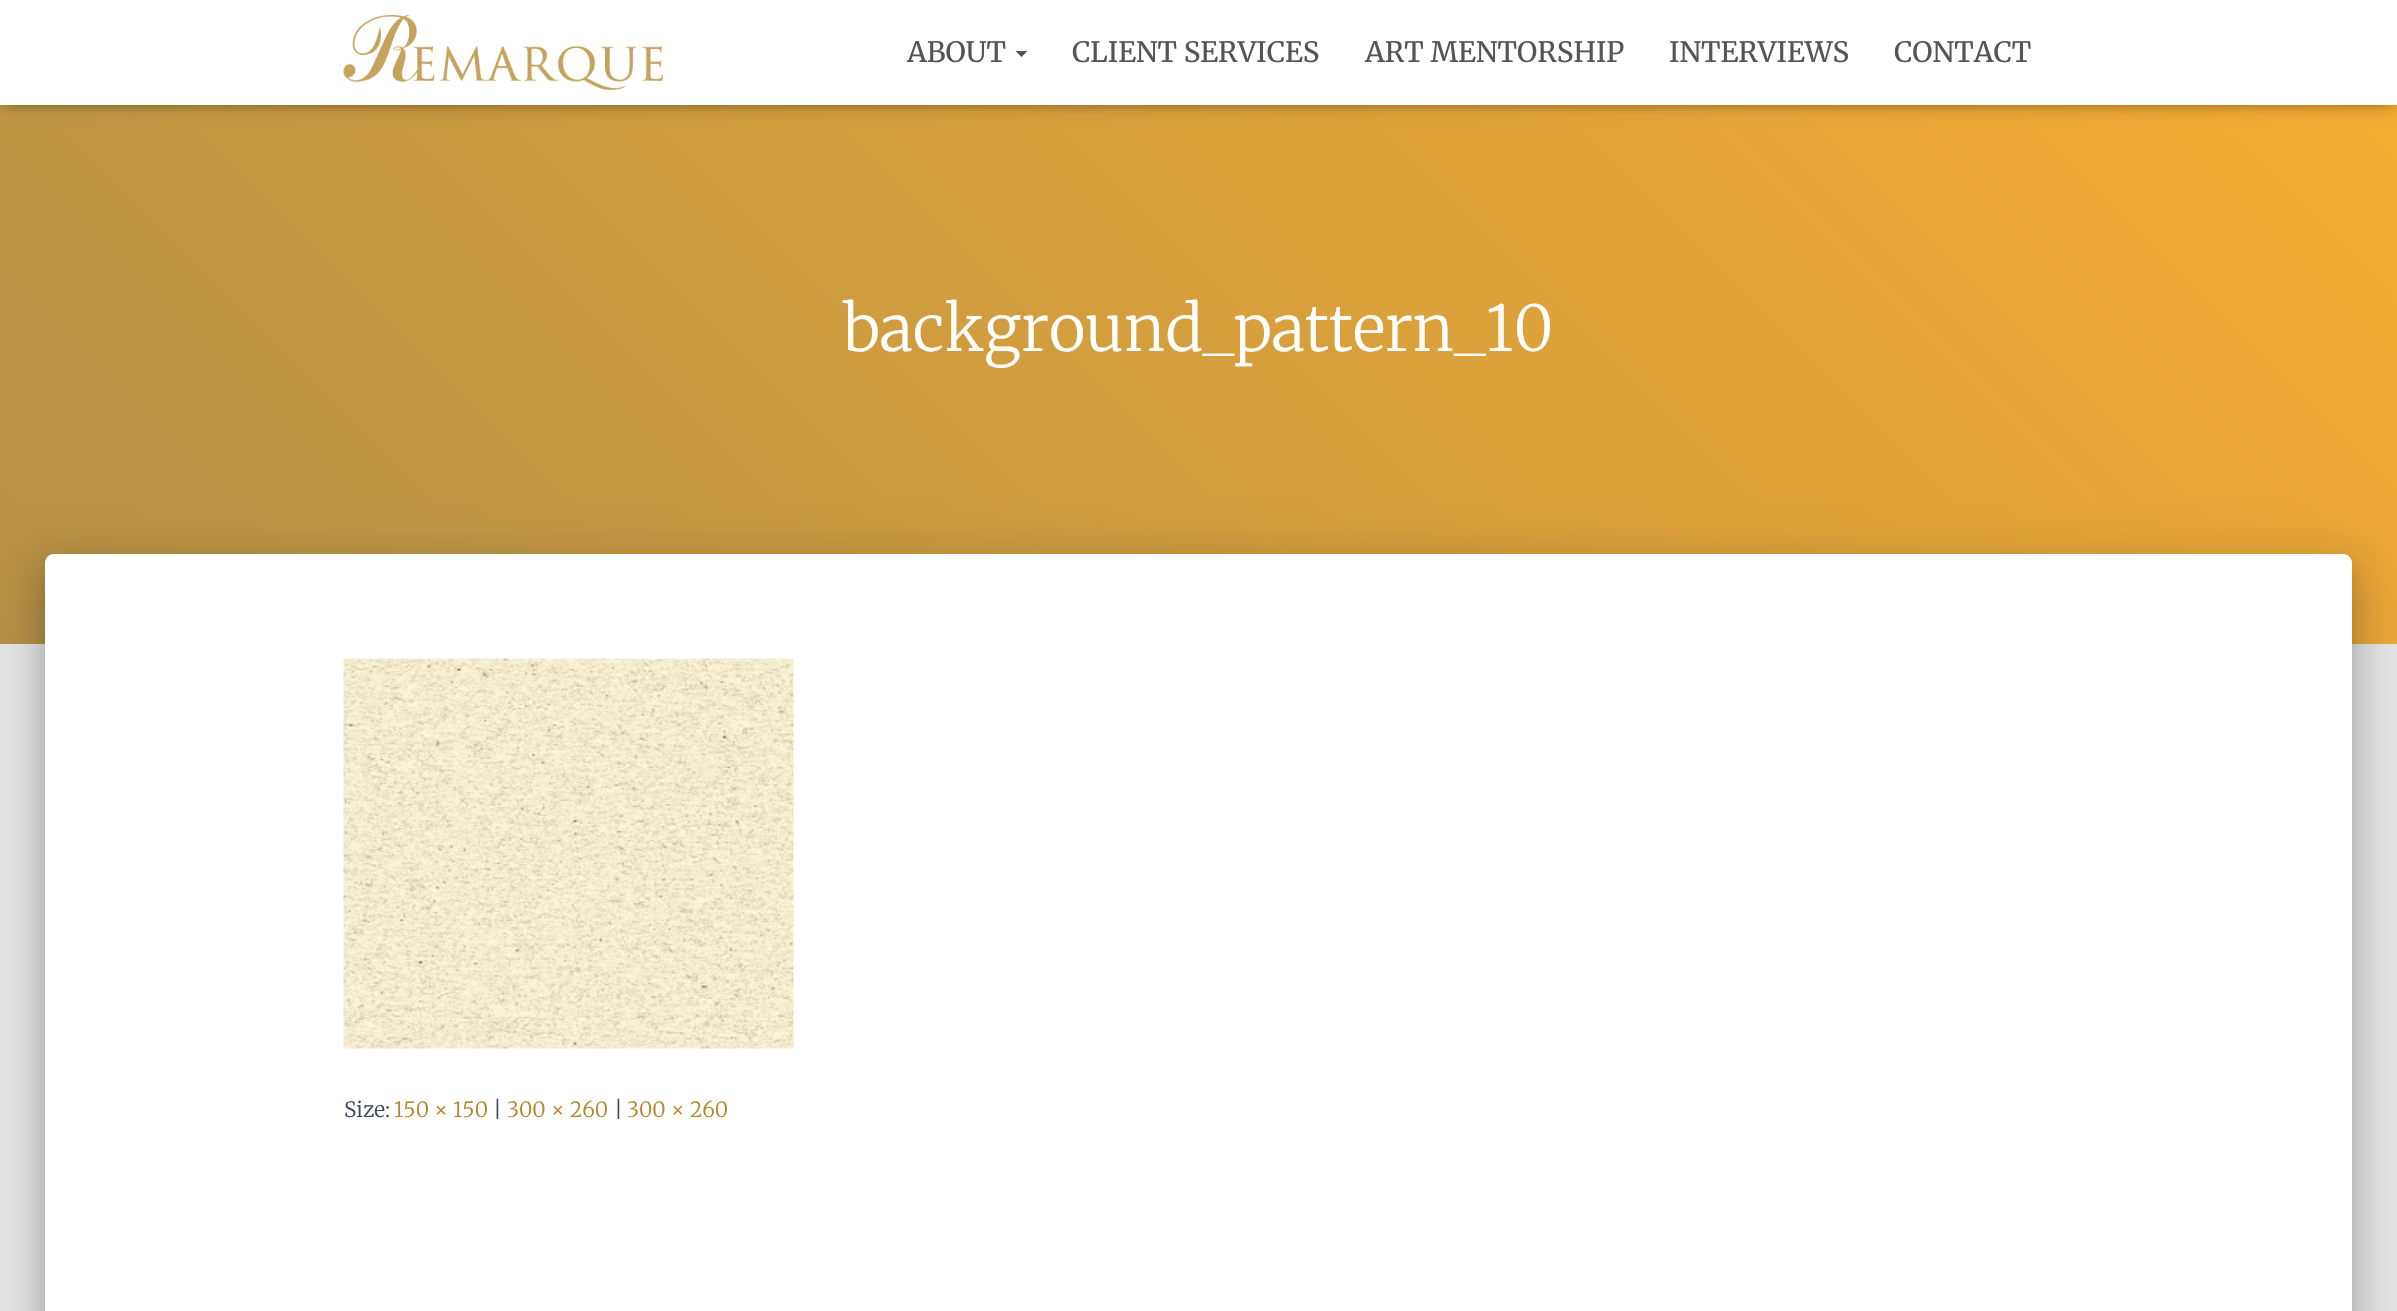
void draw(SkCanvas* canvas) {
	SkPaint paint;
	paint.setAntiAlias(true);
	auto svgPath = [&](const char* data, bool evenOdd = false) {
		SkPath result = *SkParsePath::FromSVGString(data);
		if (evenOdd) result.setFillType(SkPathFillType::kEvenOdd);
		return result;
	};
	canvas->clear(0xffe5e5e5);
	{
		const SkColor colors[] = {0xffb59147, 0xfff7ad32};
		const float stops[] = {0, 1};
		const SkPoint ends[] = {{438, 1082}, {1959, -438}};
		paint.setShader(SkGradientShader::MakeLinear(ends, colors, stops, 2, SkTileMode::kClamp));
		paint.setAlpha(255);
	}
	canvas->drawRect(SkRect::MakeXYWH(0, 105, 2397, 539), paint);
	paint.setShader(nullptr);
	paint.setColor(0x1a000000);
	paint.setMaskFilter(SkMaskFilter::MakeBlur(kNormal_SkBlurStyle, 4));
	canvas->drawRect(SkRect::MakeXYWH(3, 9, 2391, 99), paint);
	paint.setMaskFilter(nullptr);
	paint.setColor(0x1f000000);
	paint.setMaskFilter(SkMaskFilter::MakeBlur(kNormal_SkBlurStyle, 7.5));
	canvas->drawRect(SkRect::MakeXYWH(0, 2, 2397, 105), paint);
	paint.setMaskFilter(nullptr);
	paint.setColor(0x6b000000);
	paint.setMaskFilter(SkMaskFilter::MakeBlur(kNormal_SkBlurStyle, 7.5));
	canvas->drawRect(SkRect::MakeXYWH(9, 11, 2379, 87), paint);
	paint.setMaskFilter(nullptr);
	paint.setColor(0xffffffff);
	canvas->drawRect(SkRect::MakeXYWH(0, 0, 2397, 105), paint);
	canvas->drawImageRect(SkImages::DeferredFromEncodedData(SkData::MakeFromFileName("img1.png")), SkRect::MakeXYWH(343, 15, 320, 75), SkSamplingOptions());
	SkFont f1(fontMgr->matchFamilyStyle("Merriweather", SkFontStyle::Normal()), 28);
	f1.setSubpixel(true);
	paint.setColor(0xff555555);
	canvas->drawString("ABOUT", 907, 62, f1, paint);
	canvas->drawPath(svgPath("M1015.5 51H1027.5L1021.5 57Z"), paint);
	canvas->drawString("CLIENT SERVICES", 1072, 62, f1, paint);
	canvas->drawString("ART MENTORSHIP", 1365, 62, f1, paint);
	canvas->drawString("INTERVIEWS", 1669, 62, f1, paint);
	canvas->drawString("CONTACT", 1894, 62, f1, paint);
	SkFont f2(fontMgr->matchFamilyStyle("Merriweather", SkFontStyle(300, SkFontStyle::kNormal_Width, SkFontStyle::kUpright_Slant)), 63);
	f2.setSubpixel(true);
	paint.setColor(0xffffffff);
	canvas->drawString("background_pattern_10", 843, 351, f2, paint);
	paint.setColor(0x33000000);
	paint.setMaskFilter(SkMaskFilter::MakeBlur(kNormal_SkBlurStyle, 7.5));
	canvas->drawRoundRect(SkRect::MakeXYWH(53, 573, 2292, 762), 1.5, 1.5, paint);
	paint.setMaskFilter(nullptr);
	paint.setColor(0x1f000000);
	paint.setMaskFilter(SkMaskFilter::MakeBlur(kNormal_SkBlurStyle, 22.5));
	canvas->drawRoundRect(SkRect::MakeXYWH(38, 555, 2322, 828), 17, 17, paint);
	paint.setMaskFilter(nullptr);
	paint.setColor(0x24000000);
	paint.setMaskFilter(SkMaskFilter::MakeBlur(kNormal_SkBlurStyle, 18));
	canvas->drawRoundRect(SkRect::MakeXYWH(42, 575, 2313, 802), 12, 12, paint);
	paint.setMaskFilter(nullptr);
	paint.setColor(0xffffffff);
	canvas->drawPath(svgPath("M54 554H2343C2348 554 2352 558 2352 563V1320H45V563C45 558 49 554 54 554Z"), paint);
	canvas->drawImageRect(SkImages::DeferredFromEncodedData(SkData::MakeFromFileName("img2.png")), SkRect::MakeXYWH(343, 658, 451, 391), SkSamplingOptions());
	SkFont f3(fontMgr->matchFamilyStyle("Merriweather", SkFontStyle(300, SkFontStyle::kNormal_Width, SkFontStyle::kUpright_Slant)), 21);
	f3.setSubpixel(true);
	paint.setColor(0xff3c4858);
	canvas->drawString("Size:", 344, 1117, f3, paint);
	paint.setColor(0xffb58629);
	canvas->drawString("150 × 150", 394, 1117, f3, paint);
	paint.setColor(0xff3c4858);
	canvas->drawString("|", 493, 1117, f3, paint);
	paint.setColor(0xffb58629);
	canvas->drawString("300 × 260", 507, 1117, f3, paint);
	paint.setColor(0xff3c4858);
	canvas->drawString("|", 614, 1117, f3, paint);
	paint.setColor(0xffb58629);
	canvas->drawString("300 × 260", 627, 1117, f3, paint);
}
